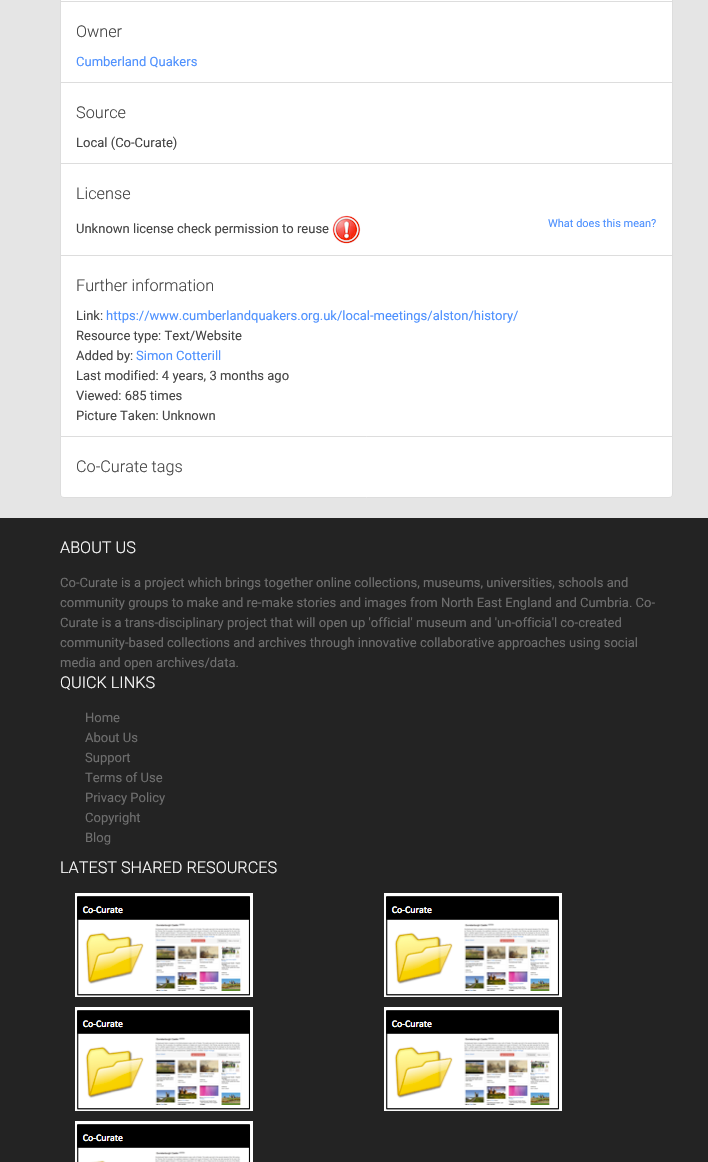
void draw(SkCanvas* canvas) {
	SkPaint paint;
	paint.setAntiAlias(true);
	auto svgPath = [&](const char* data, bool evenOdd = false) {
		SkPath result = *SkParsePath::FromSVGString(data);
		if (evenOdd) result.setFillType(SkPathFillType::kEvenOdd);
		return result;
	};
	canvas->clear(0xffe5e5e5);
	paint.setColor(0xffffffff);
	canvas->drawRect(SkRect::MakeXYWH(60.5, -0.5, 612, 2), paint);
	paint.setStroke(true);
	paint.setStrokeWidth(1);
	paint.setColor(0xffdddddd);
	canvas->drawRect(SkRect::MakeXYWH(60.5, -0.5, 612, 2), paint);
	paint.setStroke(false);
	paint.setColor(0xffffffff);
	canvas->drawRect(SkRect::MakeXYWH(60.5, 1.5, 612, 81), paint);
	paint.setStroke(true);
	paint.setColor(0xffdddddd);
	canvas->drawRect(SkRect::MakeXYWH(60.5, 1.5, 612, 81), paint);
	SkFont f1(fontMgr->matchFamilyStyle("Roboto", SkFontStyle(300, SkFontStyle::kNormal_Width, SkFontStyle::kUpright_Slant)), 16.25);
	f1.setSubpixel(true);
	paint.setStroke(false);
	paint.setColor(0xff444444);
	canvas->drawString("Owner", 76, 37, f1, paint);
	SkFont f2(fontMgr->matchFamilyStyle("Roboto", SkFontStyle::Normal()), 13);
	f2.setSubpixel(true);
	paint.setColor(0xff4d90fe);
	canvas->drawString("Cumberland Quakers", 76, 66, f2, paint);
	paint.setColor(0xffffffff);
	canvas->drawRect(SkRect::MakeXYWH(60.5, 82.5, 612, 81), paint);
	paint.setStroke(true);
	paint.setColor(0xffdddddd);
	canvas->drawRect(SkRect::MakeXYWH(60.5, 82.5, 612, 81), paint);
	paint.setStroke(false);
	paint.setColor(0xff444444);
	canvas->drawString("Source", 76, 118, f1, paint);
	canvas->drawString("Local (Co-Curate)", 76, 147, f2, paint);
	paint.setColor(0xffffffff);
	canvas->drawRect(SkRect::MakeXYWH(60.5, 163.5, 612, 92), paint);
	paint.setStroke(true);
	paint.setColor(0xffdddddd);
	canvas->drawRect(SkRect::MakeXYWH(60.5, 163.5, 612, 92), paint);
	paint.setStroke(false);
	paint.setColor(0xff444444);
	canvas->drawString("License", 76, 199, f1, paint);
	canvas->drawString("Unknown license check permission to reuse", 76, 233, f2, paint);
	canvas->drawImageRect(SkImages::DeferredFromEncodedData(SkData::MakeFromFileName("img1.png")), SkRect::MakeXYWH(332, 215, 29, 29), SkSamplingOptions());
	SkFont f3(fontMgr->matchFamilyStyle("Roboto", SkFontStyle::Normal()), 11);
	f3.setSubpixel(true);
	paint.setColor(0xff4d90fe);
	canvas->drawString("What does this mean?", 548, 227, f3, paint);
	paint.setColor(0xffffffff);
	canvas->drawRect(SkRect::MakeXYWH(60.5, 255.5, 612, 181), paint);
	paint.setStroke(true);
	paint.setColor(0xffdddddd);
	canvas->drawRect(SkRect::MakeXYWH(60.5, 255.5, 612, 181), paint);
	paint.setStroke(false);
	paint.setColor(0xff444444);
	canvas->drawString("Further information", 76, 291, f1, paint);
	canvas->drawString("Link:", 76, 320, f2, paint);
	paint.setColor(0xff4d90fe);
	canvas->drawString("https://www.cumberlandquakers.org.uk/local-meetings/alston/history/", 106, 320, f2, paint);
	paint.setColor(0xff444444);
	canvas->drawString("Resource type: Text/Website", 76, 340, f2, paint);
	canvas->drawString("Added by:", 76, 360, f2, paint);
	paint.setColor(0xff4d90fe);
	canvas->drawString("Simon Cotterill", 136, 360, f2, paint);
	paint.setColor(0xff444444);
	canvas->drawString("Last modified: 4 years, 3 months ago", 76, 380, f2, paint);
	canvas->drawString("Viewed: 685 times", 76, 400, f2, paint);
	canvas->drawString("Picture Taken: Unknown", 76, 420, f2, paint);
	paint.setColor(0xffffffff);
	canvas->drawPath(svgPath("M60.5 436.5H672.5V494C672.5 496 671 497.5 669 497.5H64C62 497.5 60.5 496 60.5 494Z"), paint);
	paint.setStroke(true);
	paint.setColor(0xffdddddd);
	canvas->drawPath(svgPath("M60.5 436.5H672.5V494C672.5 496 671 497.5 669 497.5H64C62 497.5 60.5 496 60.5 494Z"), paint);
	paint.setStroke(false);
	paint.setColor(0xff444444);
	canvas->drawString("Co-Curate tags", 76, 472, f1, paint);
	paint.setColor(0xff232323);
	canvas->drawRect(SkRect::MakeXYWH(0, 518, 708, 644), paint);
	paint.setColor(0xffffffff);
	canvas->drawString("ABOUT US", 60, 553, f1, paint);
	paint.setColor(0xff6f6f6f);
	canvas->drawString("Co-Curate is a project which brings together online collections, museums, universities, schools and", 60, 587, f2, paint);
	canvas->drawString("community groups to make and re-make stories and images from North East England and Cumbria. Co-", 60, 607, f2, paint);
	canvas->drawString("Curate is a trans-disciplinary project that will open up 'official' museum and 'un-officia'l co-created", 60, 627, f2, paint);
	canvas->drawString("community-based collections and archives through innovative collaborative approaches using social", 60, 647, f2, paint);
	canvas->drawString("media and open archives/data.", 60, 667, f2, paint);
	paint.setColor(0xffffffff);
	canvas->drawString("QUICK LINKS", 60, 688, f1, paint);
	paint.setColor(0xff6f6f6f);
	canvas->drawString("Home", 85, 722, f2, paint);
	canvas->drawString("About Us", 85, 742, f2, paint);
	canvas->drawString("Support", 85, 762, f2, paint);
	canvas->drawString("Terms of Use", 85, 782, f2, paint);
	canvas->drawString("Privacy Policy", 85, 802, f2, paint);
	canvas->drawString("Copyright", 85, 822, f2, paint);
	canvas->drawString("Blog", 85, 842, f2, paint);
	paint.setColor(0xffffffff);
	canvas->drawString("LATEST SHARED RESOURCES", 60, 873, f1, paint);
	canvas->drawImageRect(SkImages::DeferredFromEncodedData(SkData::MakeFromFileName("img2.png")), SkRect::MakeXYWH(75, 893, 178, 104), SkSamplingOptions());
	canvas->drawImageRect(SkImages::DeferredFromEncodedData(SkData::MakeFromFileName("img2.png")), SkRect::MakeXYWH(384, 893, 178, 104), SkSamplingOptions());
	canvas->drawImageRect(SkImages::DeferredFromEncodedData(SkData::MakeFromFileName("img2.png")), SkRect::MakeXYWH(75, 1007, 178, 104), SkSamplingOptions());
	canvas->drawImageRect(SkImages::DeferredFromEncodedData(SkData::MakeFromFileName("img2.png")), SkRect::MakeXYWH(384, 1007, 178, 104), SkSamplingOptions());
	canvas->drawImageRect(SkImages::DeferredFromEncodedData(SkData::MakeFromFileName("img3.png")), SkRect::MakeXYWH(75, 1121, 178, 41), SkSamplingOptions());
}
